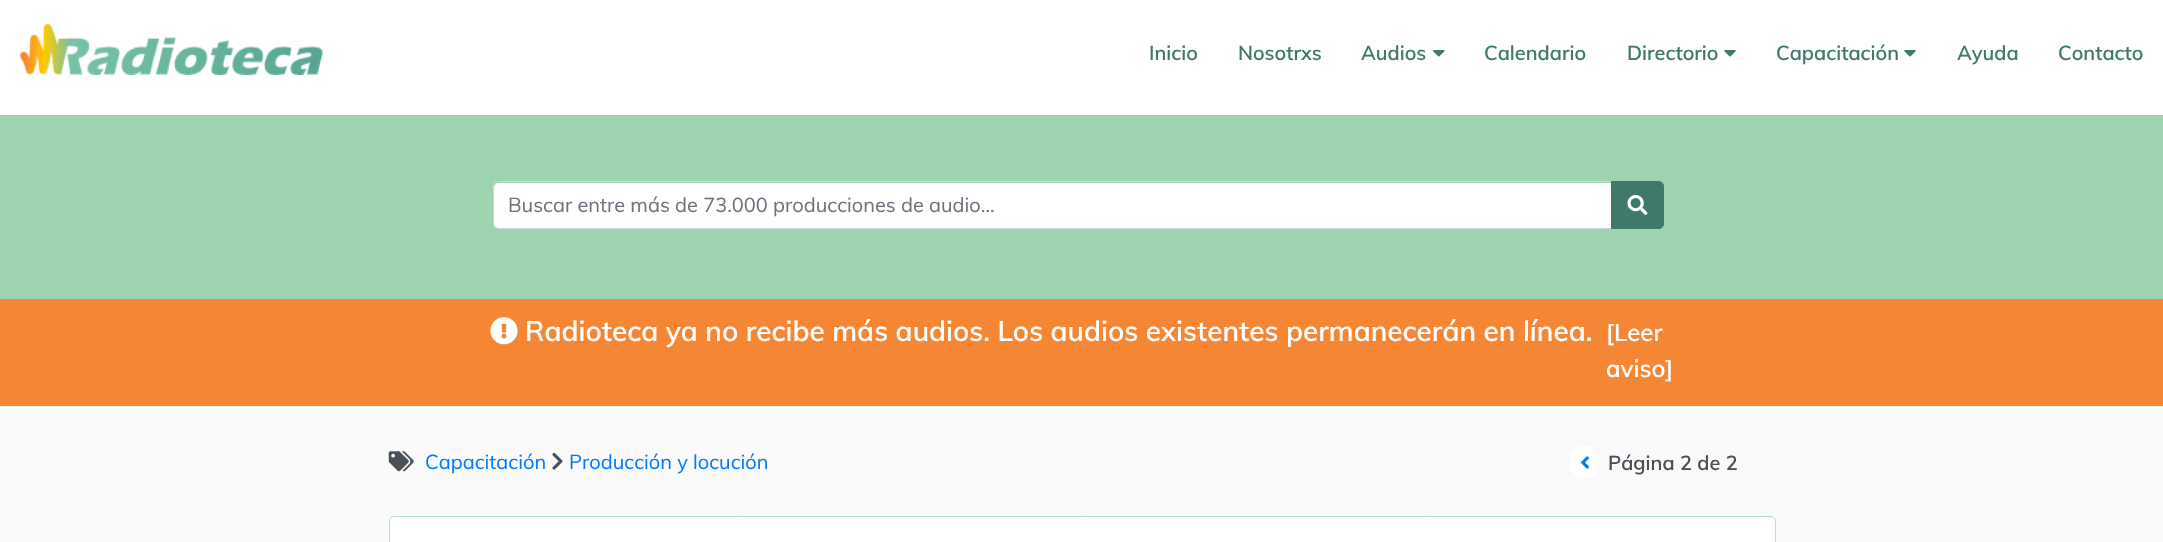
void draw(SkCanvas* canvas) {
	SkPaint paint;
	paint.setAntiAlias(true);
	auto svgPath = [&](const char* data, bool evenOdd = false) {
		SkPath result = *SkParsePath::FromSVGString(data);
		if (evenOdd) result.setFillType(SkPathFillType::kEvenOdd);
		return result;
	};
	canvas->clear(0xffffffff);
	canvas->drawImageRect(SkImages::DeferredFromEncodedData(SkData::MakeFromFileName("img1.png")), SkRect::MakeXYWH(20, 23, 303, 52), SkSamplingOptions());
	SkFont f1(fontMgr->matchFamilyStyle("Muli", SkFontStyle(600, SkFontStyle::kNormal_Width, SkFontStyle::kUpright_Slant)), 20);
	f1.setSubpixel(true);
	paint.setColor(0xff40796c);
	canvas->drawString("Inicio", 1149, 60, f1, paint);
	canvas->drawString("Nosotrxs", 1238, 60, f1, paint);
	canvas->drawString("Audios", 1361, 60, f1, paint);
	canvas->drawImageRect(SkImages::DeferredFromEncodedData(SkData::MakeFromFileName("img2.png")), SkRect::MakeXYWH(1433, 50, 12, 7), SkSamplingOptions());
	canvas->drawString("Calendario", 1484, 60, f1, paint);
	canvas->drawString("Directorio", 1627, 60, f1, paint);
	canvas->drawImageRect(SkImages::DeferredFromEncodedData(SkData::MakeFromFileName("img3.png")), SkRect::MakeXYWH(1724, 50, 12, 7), SkSamplingOptions());
	canvas->drawString("Capacitación", 1776, 60, f1, paint);
	canvas->drawImageRect(SkImages::DeferredFromEncodedData(SkData::MakeFromFileName("img3.png")), SkRect::MakeXYWH(1904, 50, 12, 7), SkSamplingOptions());
	canvas->drawString("Ayuda", 1957, 60, f1, paint);
	canvas->drawString("Contacto", 2058, 60, f1, paint);
	paint.setColor(0xff9dd3af);
	canvas->drawRect(SkRect::MakeXYWH(0, 115, 2163, 184), paint);
	paint.setColor(0xffffffff);
	canvas->drawPath(svgPath("M498 183H1611V228H498C496 228 494 226 494 224V187C494 185 496 183 498 183Z"), paint);
	paint.setStroke(true);
	paint.setStrokeWidth(1);
	paint.setColor(0xffced4da);
	canvas->drawPath(svgPath("M498 181.5H1612.5V228.5H498C495.5 228.5 493.5 226.5 493.5 224V186C493.5 183.5 495.5 181.5 498 181.5Z"), paint);
	SkFont f2(fontMgr->matchFamilyStyle("Muli", SkFontStyle::Normal()), 20);
	f2.setSubpixel(true);
	paint.setStroke(false);
	paint.setColor(0xff6c757d);
	canvas->drawString("Buscar entre más de 73.000 producciones de audio...", 508, 212, f2, paint);
	paint.setColor(0xff40796c);
	canvas->drawPath(svgPath("M1611.5 181.5H1659C1661.5 181.5 1663.5 183.5 1663.5 186V224C1663.5 226.5 1661.5 228.5 1659 228.5H1611.5Z"), paint);
	paint.setStroke(true);
	canvas->drawPath(svgPath("M1611.5 181.5H1659C1661.5 181.5 1663.5 183.5 1663.5 186V224C1663.5 226.5 1661.5 228.5 1659 228.5H1611.5Z"), paint);
	canvas->drawImageRect(SkImages::DeferredFromEncodedData(SkData::MakeFromFileName("img4.png")), SkRect::MakeXYWH(1627, 195, 21, 20), SkSamplingOptions());
	paint.setStroke(false);
	paint.setColor(0xfff58634);
	canvas->drawRect(SkRect::MakeXYWH(0, 299, 2163, 107), paint);
	canvas->drawImageRect(SkImages::DeferredFromEncodedData(SkData::MakeFromFileName("img5.png")), SkRect::MakeXYWH(490, 317, 28, 28), SkSamplingOptions());
	SkFont f3(fontMgr->matchFamilyStyle("Muli", SkFontStyle(600, SkFontStyle::kNormal_Width, SkFontStyle::kUpright_Slant)), 28);
	f3.setSubpixel(true);
	paint.setColor(0xffffffff);
	canvas->drawString("Radioteca ya no recibe más audios. Los audios existentes permanecerán en línea.", 525, 341, f3, paint);
	SkFont f4(fontMgr->matchFamilyStyle("Muli", SkFontStyle(600, SkFontStyle::kNormal_Width, SkFontStyle::kUpright_Slant)), 24);
	f4.setSubpixel(true);
	canvas->drawString("[Leer", 1606, 341, f4, paint);
	canvas->drawString("aviso]", 1606, 377, f4, paint);
	paint.setColor(0xfffafafa);
	canvas->drawRect(SkRect::MakeXYWH(0, 406, 2163, 136), paint);
	canvas->drawImageRect(SkImages::DeferredFromEncodedData(SkData::MakeFromFileName("img6.png")), SkRect::MakeXYWH(388, 451, 26, 21), SkSamplingOptions());
	paint.setColor(0xff007bff);
	canvas->drawString("Capacitación", 425, 469, f2, paint);
	canvas->drawImageRect(SkImages::DeferredFromEncodedData(SkData::MakeFromFileName("img7.png")), SkRect::MakeXYWH(552, 452, 11, 18), SkSamplingOptions());
	canvas->drawString("Producción y locución", 569, 469, f2, paint);
	paint.setColor(0xffffffff);
	canvas->drawRoundRect(SkRect::MakeXYWH(1570, 446, 30, 33), 15, 15, paint);
	canvas->drawImageRect(SkImages::DeferredFromEncodedData(SkData::MakeFromFileName("img8.png")), SkRect::MakeXYWH(1581, 456, 8, 13), SkSamplingOptions());
	paint.setColor(0xff495057);
	canvas->drawString("Página 2 de 2", 1608, 470, f1, paint);
	paint.setColor(0xffffffff);
	canvas->drawPath(svgPath("M394 516.5H1771C1773.5 516.5 1775.5 518.5 1775.5 521V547.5H389.5V521C389.5 518.5 391.5 516.5 394 516.5Z"), paint);
	paint.setStroke(true);
	paint.setColor(0xffb7dcd4);
	canvas->drawPath(svgPath("M394 516.5H1771C1773.5 516.5 1775.5 518.5 1775.5 521V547.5H389.5V521C389.5 518.5 391.5 516.5 394 516.5Z"), paint);
}
